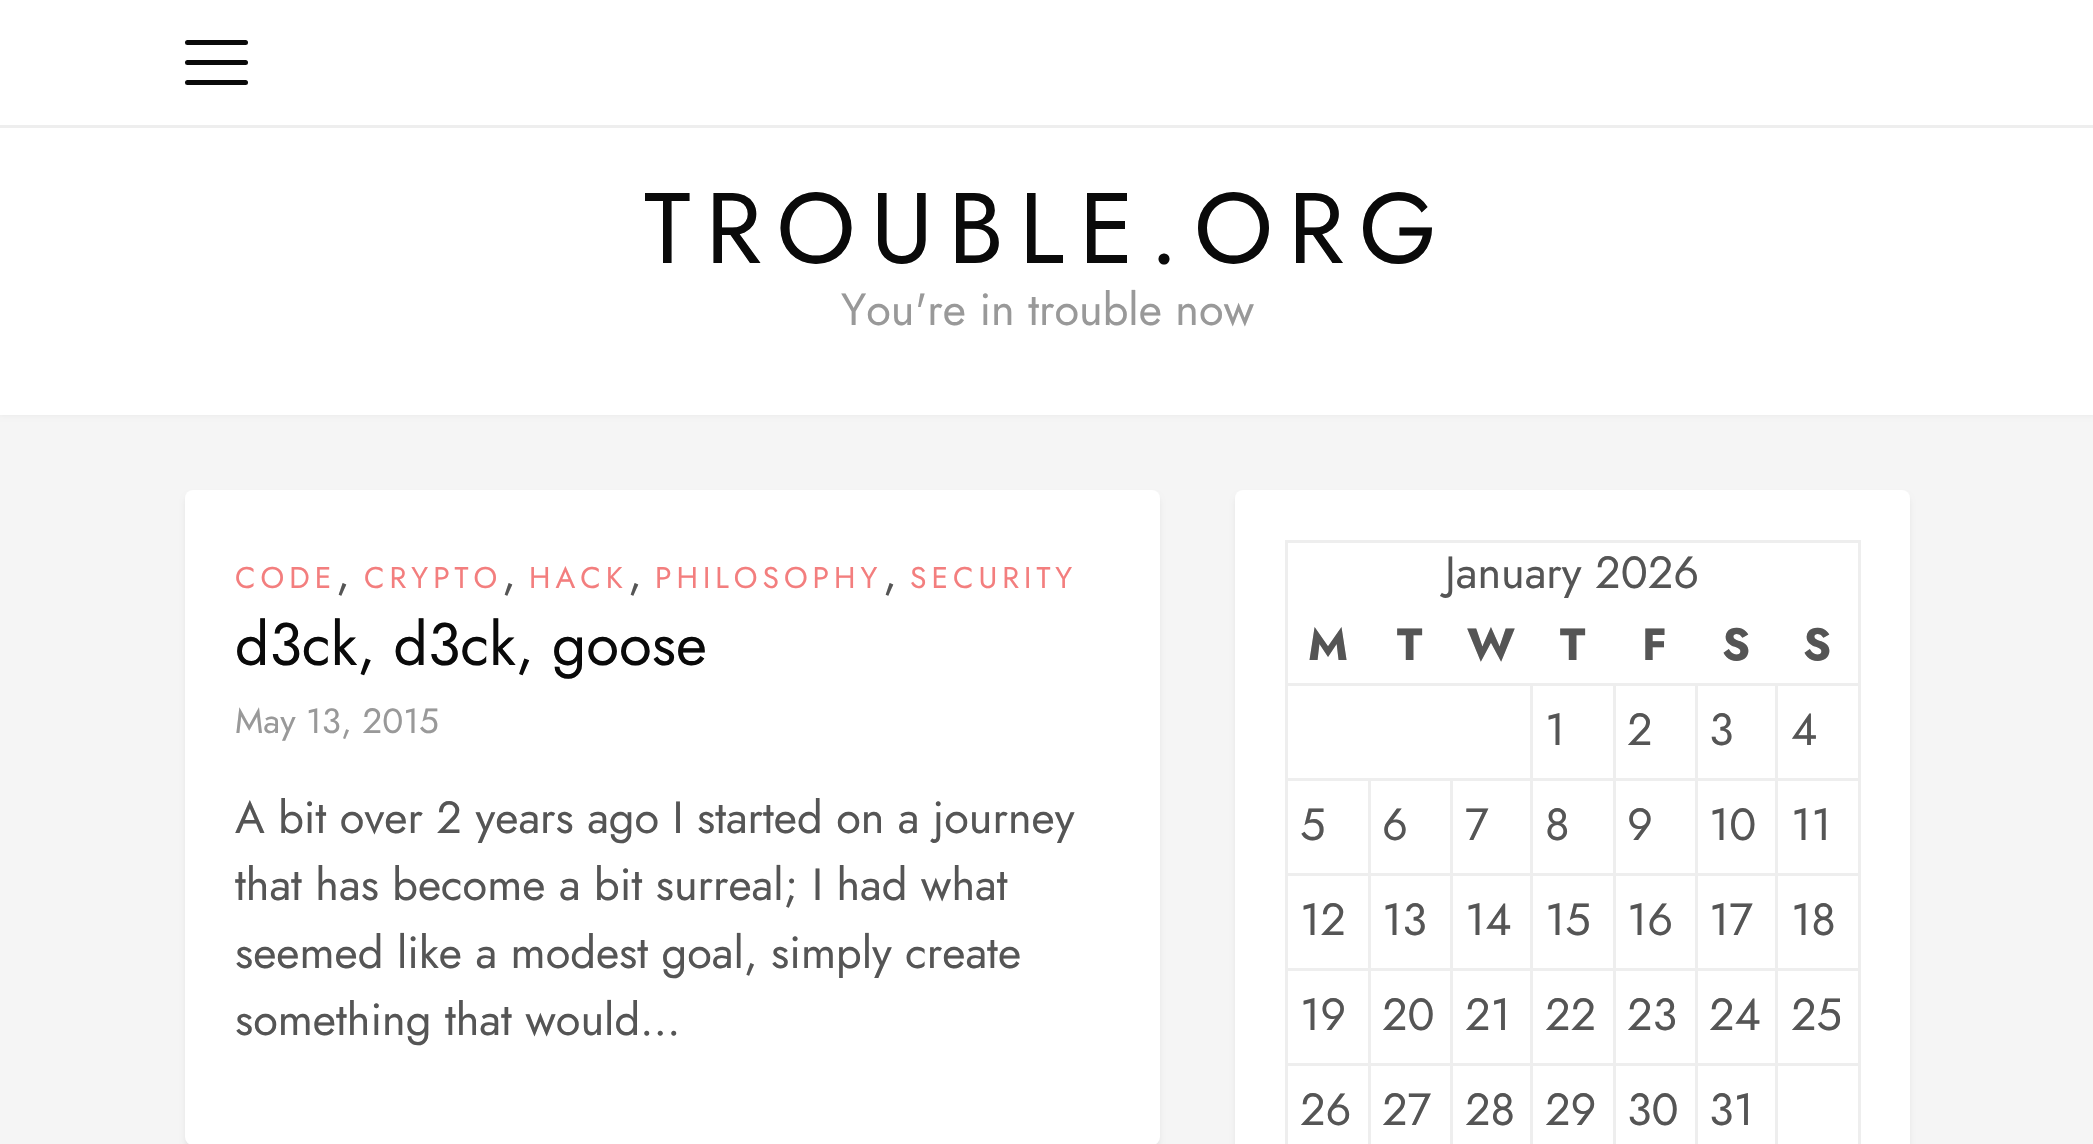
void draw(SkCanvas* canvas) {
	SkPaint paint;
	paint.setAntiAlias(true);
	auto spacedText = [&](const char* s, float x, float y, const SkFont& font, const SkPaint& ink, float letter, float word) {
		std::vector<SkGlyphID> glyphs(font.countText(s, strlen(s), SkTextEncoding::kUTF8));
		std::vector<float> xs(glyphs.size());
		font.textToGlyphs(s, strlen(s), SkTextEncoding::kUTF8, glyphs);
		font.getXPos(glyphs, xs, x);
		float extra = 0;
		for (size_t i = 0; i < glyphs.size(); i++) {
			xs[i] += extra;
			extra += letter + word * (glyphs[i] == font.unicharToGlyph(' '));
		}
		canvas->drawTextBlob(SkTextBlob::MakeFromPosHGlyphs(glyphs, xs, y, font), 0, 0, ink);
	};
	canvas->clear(0xfff5f5f5);
	paint.setColor(0x0d000000);
	paint.setMaskFilter(SkMaskFilter::MakeBlur(kNormal_SkBlurStyle, 2.5));
	canvas->drawRect(SkRect::MakeXYWH(0, 0, 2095, 415), paint);
	paint.setMaskFilter(nullptr);
	paint.setColor(0xffffffff);
	canvas->drawRect(SkRect::MakeXYWH(0, 0, 2093, 415), paint);
	paint.setColor(0xffeeeeee);
	canvas->drawRect(SkRect::MakeXYWH(0, 125, 2093, 3), paint);
	paint.setColor(0xff0a0a0a);
	canvas->drawRoundRect(SkRect::MakeXYWH(185, 40, 63, 5), 2.5, 2.5, paint);
	canvas->drawRoundRect(SkRect::MakeXYWH(185, 60, 63, 5), 2.5, 2.5, paint);
	canvas->drawRoundRect(SkRect::MakeXYWH(185, 80, 63, 5), 2.5, 2.5, paint);
	SkFont f1(fontMgr->matchFamilyStyle("Jost", SkFontStyle::Normal()), 100);
	f1.setSubpixel(true);
	spacedText("TROUBLE.ORG", 644, 263, f1, paint, 15, 0);
	SkFont f2(fontMgr->matchFamilyStyle("Jost", SkFontStyle::Normal()), 45);
	f2.setSubpixel(true);
	paint.setColor(0xff999999);
	canvas->drawString("You're in trouble now", 841, 325, f2, paint);
	paint.setColor(0x0f000000);
	paint.setMaskFilter(SkMaskFilter::MakeBlur(kNormal_SkBlurStyle, 2.5));
	canvas->drawRoundRect(SkRect::MakeXYWH(185, 495, 975, 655), 8, 8, paint);
	paint.setMaskFilter(nullptr);
	paint.setColor(0xffffffff);
	canvas->drawRoundRect(SkRect::MakeXYWH(185, 490, 975, 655), 8, 8, paint);
	SkFont f3(fontMgr->matchFamilyStyle("Jost", SkFontStyle::Normal()), 30);
	f3.setSubpixel(true);
	paint.setColor(0xfff37e7e);
	spacedText("CODE", 235, 588, f3, paint, 5, 0);
	paint.setColor(0xff555555);
	canvas->drawString(",", 336, 588, f2, paint);
	paint.setColor(0xfff37e7e);
	spacedText("CRYPTO", 364, 588, f3, paint, 5, 0);
	paint.setColor(0xff555555);
	canvas->drawString(",", 502, 588, f2, paint);
	paint.setColor(0xfff37e7e);
	spacedText("HACK", 529, 588, f3, paint, 5, 0);
	paint.setColor(0xff555555);
	canvas->drawString(",", 628, 588, f2, paint);
	paint.setColor(0xfff37e7e);
	spacedText("PHILOSOPHY", 655, 588, f3, paint, 5, 0);
	paint.setColor(0xff555555);
	canvas->drawString(",", 883, 588, f2, paint);
	paint.setColor(0xfff37e7e);
	spacedText("SECURITY", 910, 588, f3, paint, 5, 0);
	SkFont f4(fontMgr->matchFamilyStyle("Jost", SkFontStyle::Normal()), 60);
	f4.setSubpixel(true);
	paint.setColor(0xff0a0a0a);
	canvas->drawString("d3ck, d3ck, goose", 235, 665, f4, paint);
	SkFont f5(fontMgr->matchFamilyStyle("Jost", SkFontStyle::Normal()), 35);
	f5.setSubpixel(true);
	paint.setColor(0xff999999);
	canvas->drawString("May 13, 2015", 235, 733, f5, paint);
	paint.setColor(0xff555555);
	canvas->drawString("A bit over 2 years ago I started on a journey", 235, 833, f2, paint);
	canvas->drawString("that has become a bit surreal; I had what", 235, 900, f2, paint);
	canvas->drawString("seemed like a modest goal, simply create", 235, 968, f2, paint);
	canvas->drawString("something that would...", 235, 1035, f2, paint);
	paint.setColor(0x0f000000);
	paint.setMaskFilter(SkMaskFilter::MakeBlur(kNormal_SkBlurStyle, 2.5));
	canvas->drawRoundRect(SkRect::MakeXYWH(1235, 495, 675, 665), 8, 8, paint);
	paint.setMaskFilter(nullptr);
	paint.setColor(0xffffffff);
	canvas->drawRoundRect(SkRect::MakeXYWH(1235, 490, 675, 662), 8, 8, paint);
	paint.setColor(0xffeeeeee);
	canvas->drawRect(SkRect::MakeXYWH(1285, 540, 575, 3), paint);
	canvas->drawRect(SkRect::MakeXYWH(1858, 540, 3, 604), paint);
	canvas->drawRect(SkRect::MakeXYWH(1285, 540, 3, 604), paint);
	paint.setColor(0xff555555);
	canvas->drawString("January 2026", 1445, 588, f2, paint);
	SkFont f6(fontMgr->matchFamilyStyle("Jost", SkFontStyle::Bold()), 45);
	f6.setSubpixel(true);
	canvas->drawString("M", 1308, 660, f6, paint);
	canvas->drawString("T", 1397, 660, f6, paint);
	canvas->drawString("W", 1467, 660, f6, paint);
	canvas->drawString("T", 1560, 660, f6, paint);
	canvas->drawString("F", 1642, 660, f6, paint);
	canvas->drawString("S", 1722, 660, f6, paint);
	canvas->drawString("S", 1803, 660, f6, paint);
	paint.setColor(0xffeeeeee);
	canvas->drawRect(SkRect::MakeXYWH(1775, 683, 85, 3), paint);
	canvas->drawRect(SkRect::MakeXYWH(1775, 778, 85, 3), paint);
	canvas->drawRect(SkRect::MakeXYWH(1775, 873, 85, 3), paint);
	canvas->drawRect(SkRect::MakeXYWH(1775, 968, 85, 3), paint);
	canvas->drawRect(SkRect::MakeXYWH(1775, 1063, 85, 3), paint);
	canvas->drawRect(SkRect::MakeXYWH(1775, 1063, 3, 81), paint);
	canvas->drawRect(SkRect::MakeXYWH(1695, 1063, 83, 3), paint);
	canvas->drawRect(SkRect::MakeXYWH(1775, 968, 3, 97), paint);
	canvas->drawRect(SkRect::MakeXYWH(1695, 968, 83, 3), paint);
	canvas->drawRect(SkRect::MakeXYWH(1775, 873, 3, 97), paint);
	canvas->drawRect(SkRect::MakeXYWH(1695, 873, 83, 3), paint);
	canvas->drawRect(SkRect::MakeXYWH(1775, 778, 3, 97), paint);
	canvas->drawRect(SkRect::MakeXYWH(1695, 778, 83, 3), paint);
	canvas->drawRect(SkRect::MakeXYWH(1775, 683, 3, 97), paint);
	canvas->drawRect(SkRect::MakeXYWH(1695, 683, 83, 3), paint);
	canvas->drawRect(SkRect::MakeXYWH(1695, 1063, 3, 81), paint);
	canvas->drawRect(SkRect::MakeXYWH(1613, 1063, 85, 3), paint);
	canvas->drawRect(SkRect::MakeXYWH(1695, 968, 3, 97), paint);
	canvas->drawRect(SkRect::MakeXYWH(1613, 968, 85, 3), paint);
	canvas->drawRect(SkRect::MakeXYWH(1695, 873, 3, 97), paint);
	canvas->drawRect(SkRect::MakeXYWH(1613, 873, 85, 3), paint);
	canvas->drawRect(SkRect::MakeXYWH(1695, 778, 3, 97), paint);
	canvas->drawRect(SkRect::MakeXYWH(1613, 778, 85, 3), paint);
	canvas->drawRect(SkRect::MakeXYWH(1695, 683, 3, 97), paint);
	canvas->drawRect(SkRect::MakeXYWH(1613, 683, 85, 3), paint);
	canvas->drawRect(SkRect::MakeXYWH(1613, 1063, 3, 81), paint);
	canvas->drawRect(SkRect::MakeXYWH(1530, 1063, 85, 3), paint);
	canvas->drawRect(SkRect::MakeXYWH(1613, 968, 3, 97), paint);
	canvas->drawRect(SkRect::MakeXYWH(1530, 968, 85, 3), paint);
	canvas->drawRect(SkRect::MakeXYWH(1613, 873, 3, 97), paint);
	canvas->drawRect(SkRect::MakeXYWH(1530, 873, 85, 3), paint);
	canvas->drawRect(SkRect::MakeXYWH(1613, 778, 3, 97), paint);
	canvas->drawRect(SkRect::MakeXYWH(1530, 778, 85, 3), paint);
	canvas->drawRect(SkRect::MakeXYWH(1613, 683, 3, 97), paint);
	canvas->drawRect(SkRect::MakeXYWH(1530, 683, 85, 3), paint);
	canvas->drawRect(SkRect::MakeXYWH(1530, 1063, 3, 81), paint);
	canvas->drawRect(SkRect::MakeXYWH(1450, 1063, 83, 3), paint);
	canvas->drawRect(SkRect::MakeXYWH(1530, 968, 3, 97), paint);
	canvas->drawRect(SkRect::MakeXYWH(1450, 968, 83, 3), paint);
	canvas->drawRect(SkRect::MakeXYWH(1530, 873, 3, 97), paint);
	canvas->drawRect(SkRect::MakeXYWH(1450, 873, 83, 3), paint);
	canvas->drawRect(SkRect::MakeXYWH(1530, 778, 3, 97), paint);
	canvas->drawRect(SkRect::MakeXYWH(1450, 778, 83, 3), paint);
	canvas->drawRect(SkRect::MakeXYWH(1530, 683, 3, 97), paint);
	canvas->drawRect(SkRect::MakeXYWH(1285, 683, 248, 3), paint);
	paint.setColor(0xff555555);
	canvas->drawString("1", 1545, 745, f2, paint);
	canvas->drawString("2", 1627, 745, f2, paint);
	canvas->drawString("3", 1709, 745, f2, paint);
	canvas->drawString("4", 1791, 745, f2, paint);
	paint.setColor(0xffeeeeee);
	canvas->drawRect(SkRect::MakeXYWH(1450, 1063, 3, 81), paint);
	canvas->drawRect(SkRect::MakeXYWH(1368, 1063, 85, 3), paint);
	canvas->drawRect(SkRect::MakeXYWH(1450, 968, 3, 97), paint);
	canvas->drawRect(SkRect::MakeXYWH(1368, 968, 85, 3), paint);
	canvas->drawRect(SkRect::MakeXYWH(1450, 873, 3, 97), paint);
	canvas->drawRect(SkRect::MakeXYWH(1368, 873, 85, 3), paint);
	canvas->drawRect(SkRect::MakeXYWH(1450, 778, 3, 97), paint);
	canvas->drawRect(SkRect::MakeXYWH(1368, 778, 85, 3), paint);
	canvas->drawRect(SkRect::MakeXYWH(1368, 1063, 3, 81), paint);
	canvas->drawRect(SkRect::MakeXYWH(1285, 1063, 85, 3), paint);
	canvas->drawRect(SkRect::MakeXYWH(1368, 968, 3, 97), paint);
	canvas->drawRect(SkRect::MakeXYWH(1285, 968, 85, 3), paint);
	canvas->drawRect(SkRect::MakeXYWH(1368, 873, 3, 97), paint);
	canvas->drawRect(SkRect::MakeXYWH(1285, 873, 85, 3), paint);
	canvas->drawRect(SkRect::MakeXYWH(1368, 778, 3, 97), paint);
	canvas->drawRect(SkRect::MakeXYWH(1285, 778, 85, 3), paint);
	paint.setColor(0xff555555);
	canvas->drawString("5", 1300, 840, f2, paint);
	canvas->drawString("6", 1382, 840, f2, paint);
	canvas->drawString("7", 1465, 840, f2, paint);
	canvas->drawString("8", 1545, 840, f2, paint);
	canvas->drawString("9", 1627, 840, f2, paint);
	canvas->drawString("10", 1709, 840, f2, paint);
	canvas->drawString("11", 1791, 840, f2, paint);
	canvas->drawString("12", 1300, 935, f2, paint);
	canvas->drawString("13", 1382, 935, f2, paint);
	canvas->drawString("14", 1465, 935, f2, paint);
	canvas->drawString("15", 1545, 935, f2, paint);
	canvas->drawString("16", 1627, 935, f2, paint);
	canvas->drawString("17", 1709, 935, f2, paint);
	canvas->drawString("18", 1791, 935, f2, paint);
	canvas->drawString("19", 1300, 1030, f2, paint);
	canvas->drawString("20", 1382, 1030, f2, paint);
	canvas->drawString("21", 1465, 1030, f2, paint);
	canvas->drawString("22", 1545, 1030, f2, paint);
	canvas->drawString("23", 1627, 1030, f2, paint);
	canvas->drawString("24", 1709, 1030, f2, paint);
	canvas->drawString("25", 1791, 1030, f2, paint);
	canvas->drawString("26", 1300, 1125, f2, paint);
	canvas->drawString("27", 1382, 1125, f2, paint);
	canvas->drawString("28", 1465, 1125, f2, paint);
	canvas->drawString("29", 1545, 1125, f2, paint);
	canvas->drawString("30", 1627, 1125, f2, paint);
	canvas->drawString("31", 1709, 1125, f2, paint);
}
